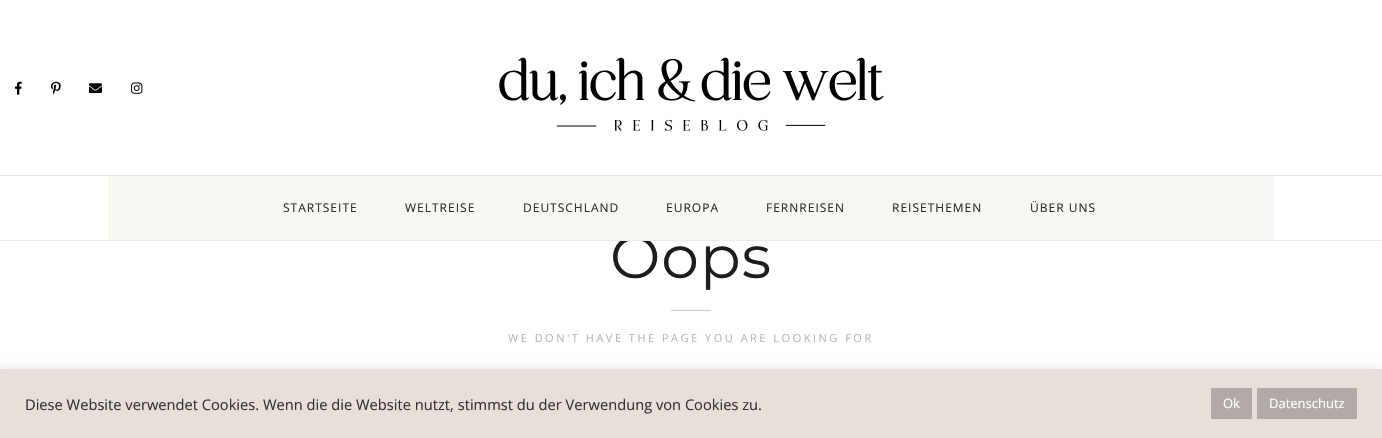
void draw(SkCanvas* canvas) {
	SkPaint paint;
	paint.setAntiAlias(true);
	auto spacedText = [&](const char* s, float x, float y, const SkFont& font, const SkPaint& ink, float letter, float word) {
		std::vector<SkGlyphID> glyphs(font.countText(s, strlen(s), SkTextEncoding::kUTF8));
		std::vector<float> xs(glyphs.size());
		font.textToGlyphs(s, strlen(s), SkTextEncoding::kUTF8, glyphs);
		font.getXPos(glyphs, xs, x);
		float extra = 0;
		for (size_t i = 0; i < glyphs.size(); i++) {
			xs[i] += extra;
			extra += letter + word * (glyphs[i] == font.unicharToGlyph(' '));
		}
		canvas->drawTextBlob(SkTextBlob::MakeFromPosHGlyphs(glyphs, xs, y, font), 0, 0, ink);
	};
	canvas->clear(0xffffffff);
	SkFont f1(fontMgr->matchFamilyStyle("Montserrat", SkFontStyle::Normal()), 60);
	f1.setSubpixel(true);
	paint.setColor(0xff1c1d1f);
	spacedText("Oops", 610, 278, f1, paint, 1, 0);
	paint.setColor(0xffffffff);
	canvas->drawRect(SkRect::MakeXYWH(621, 235, 28, 5), paint);
	paint.setColor(0xffefebe1);
	canvas->drawRect(SkRect::MakeXYWH(0, 240, 1382, 1), paint);
	paint.setColor(0xffe5e5e5);
	canvas->drawRect(SkRect::MakeXYWH(0, 175, 1382, 1), paint);
	canvas->drawImageRect(SkImages::DeferredFromEncodedData(SkData::MakeFromFileName("img1.png")), SkRect::MakeXYWH(15, 81, 7, 14), SkSamplingOptions());
	canvas->drawImageRect(SkImages::DeferredFromEncodedData(SkData::MakeFromFileName("img2.png")), SkRect::MakeXYWH(51, 81, 10, 14), SkSamplingOptions());
	canvas->drawImageRect(SkImages::DeferredFromEncodedData(SkData::MakeFromFileName("img3.png")), SkRect::MakeXYWH(89, 83, 13, 10), SkSamplingOptions());
	canvas->drawImageRect(SkImages::DeferredFromEncodedData(SkData::MakeFromFileName("img4.png")), SkRect::MakeXYWH(131, 82, 12, 12), SkSamplingOptions());
	canvas->drawImageRect(SkImages::DeferredFromEncodedData(SkData::MakeFromFileName("img5.png")), SkRect::MakeXYWH(499, 57, 385, 74), SkSamplingOptions());
	paint.setColor(0xfff8f7f2);
	canvas->drawRect(SkRect::MakeXYWH(108, 176, 1166, 64), paint);
	SkFont f2(fontMgr->matchFamilyStyle("Open Sans", SkFontStyle::Normal()), 12);
	f2.setSubpixel(true);
	paint.setColor(0xff2c2e30);
	spacedText("STARTSEITE", 283, 212, f2, paint, 1, 0);
	spacedText("WELTREISE", 405, 212, f2, paint, 1, 0);
	spacedText("DEUTSCHLAND", 523, 212, f2, paint, 1, 0);
	spacedText("EUROPA", 666, 212, f2, paint, 1, 0);
	spacedText("FERNREISEN", 766, 212, f2, paint, 1, 0);
	spacedText("REISETHEMEN", 892, 212, f2, paint, 1, 0);
	spacedText("ÜBER UNS", 1030, 212, f2, paint, 1, 0);
	paint.setColor(0xffcccccc);
	canvas->drawRect(SkRect::MakeXYWH(671, 310, 40, 1), paint);
	SkFont f3(fontMgr->matchFamilyStyle("Open Sans", SkFontStyle::Normal()), 11);
	f3.setSubpixel(true);
	paint.setColor(0xffb8b6bb);
	spacedText("WE DON'T HAVE THE PAGE YOU ARE LOOKING FOR", 508, 342, f3, paint, 2.5, 0);
	paint.setColor(0x4dacabab);
	paint.setMaskFilter(SkMaskFilter::MakeBlur(kNormal_SkBlurStyle, 5));
	canvas->drawRect(SkRect::MakeXYWH(0, 368, 1382, 69), paint);
	paint.setMaskFilter(nullptr);
	paint.setColor(0xffe8deda);
	canvas->drawRect(SkRect::MakeXYWH(0, 369, 1382, 69), paint);
	SkFont f4(fontMgr->matchFamilyStyle("Open Sans", SkFontStyle::Normal()), 14.67);
	f4.setSubpixel(true);
	paint.setColor(0xff333333);
	canvas->drawString("Diese Website verwendet Cookies. Wenn die die Website nutzt, stimmst du der Verwendung von Cookies zu.", 25, 410, f4, paint);
	paint.setColor(0xffb2aaa7);
	canvas->drawRect(SkRect::MakeXYWH(1211, 388, 41, 31), paint);
	SkFont f5(fontMgr->matchFamilyStyle("Open Sans", SkFontStyle::Normal()), 13);
	f5.setSubpixel(true);
	paint.setColor(0xffffffff);
	canvas->drawString("Ok", 1223, 408, f5, paint);
	paint.setColor(0xffb2aaa7);
	canvas->drawRect(SkRect::MakeXYWH(1257, 388, 100, 31), paint);
	paint.setColor(0xffffffff);
	canvas->drawString("Datenschutz", 1269, 408, f5, paint);
}
